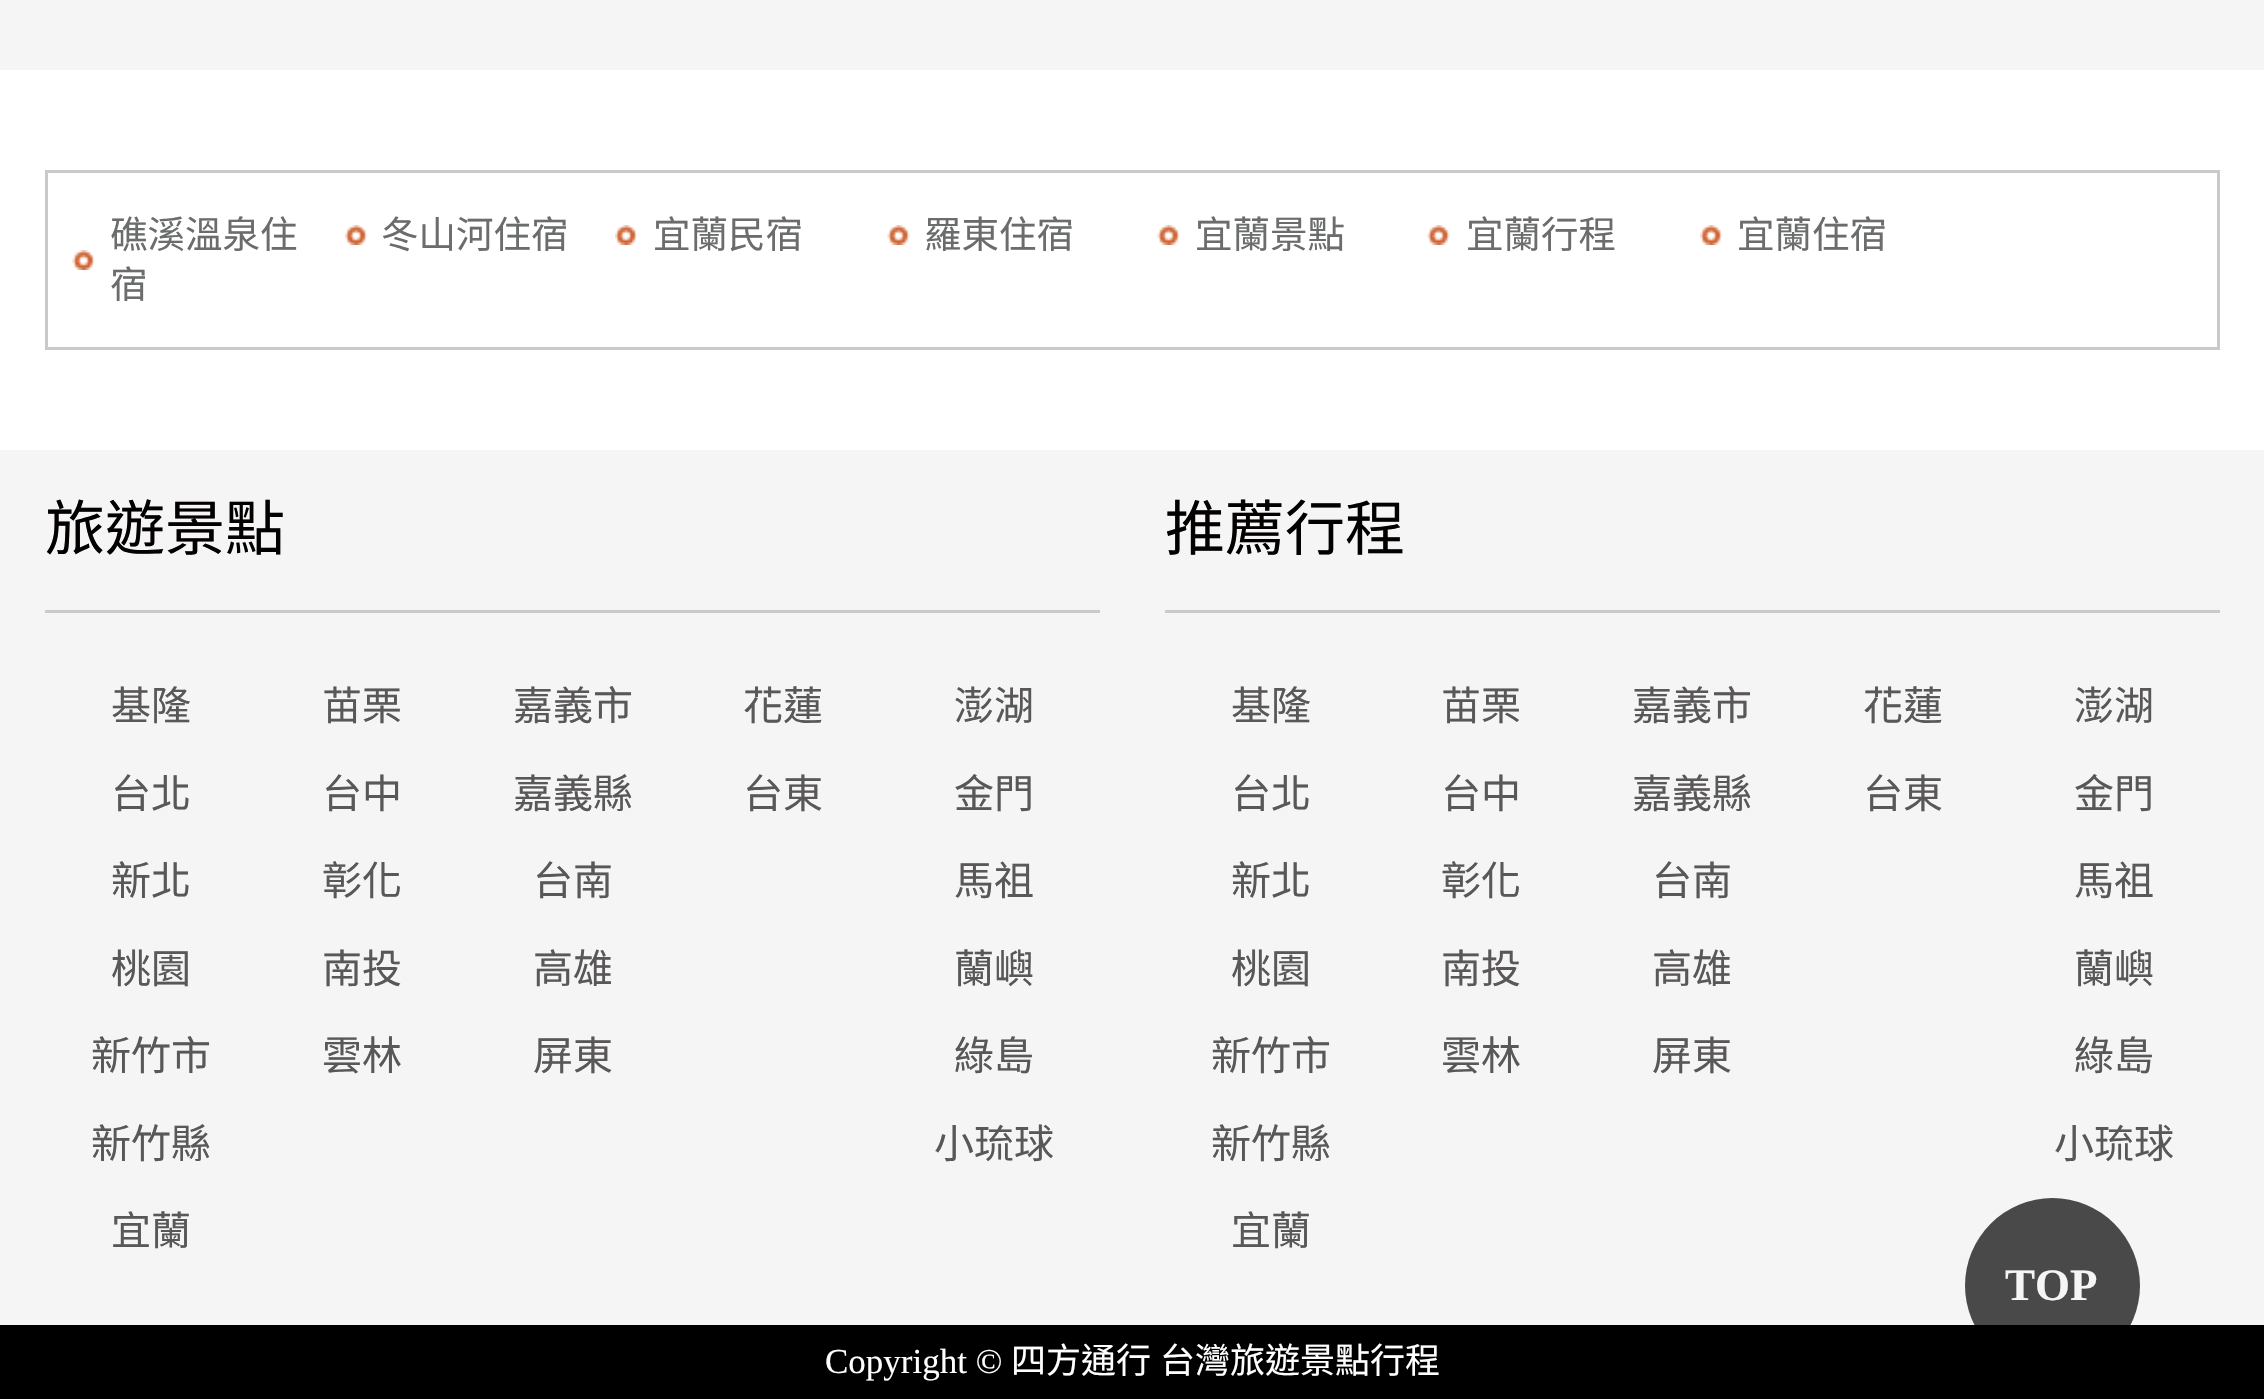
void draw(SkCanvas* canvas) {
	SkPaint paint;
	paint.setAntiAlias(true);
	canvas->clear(0xffffffff);
	paint.setColor(0xfff5f5f5);
	canvas->drawRect(SkRect::MakeXYWH(0, 0, 2264, 70), paint);
	paint.setStroke(true);
	paint.setStrokeWidth(3);
	paint.setColor(0xffc9caca);
	canvas->drawRect(SkRect::MakeXYWH(46.5, 171.5, 2172, 177), paint);
	canvas->drawImageRect(SkImages::DeferredFromEncodedData(SkData::MakeFromFileName("img1.png")), SkRect::MakeXYWH(72, 250, 23, 20), SkSamplingOptions());
	SkFont f1(fontMgr->matchFamilyStyle("Noto Sans CJK TC", SkFontStyle::Normal()), 37.5);
	f1.setSubpixel(true);
	paint.setStroke(false);
	paint.setColor(0xff6b6c6c);
	canvas->drawString("礁溪溫泉住", 110, 248, f1, paint);
	canvas->drawString("宿", 110, 298, f1, paint);
	canvas->drawImageRect(SkImages::DeferredFromEncodedData(SkData::MakeFromFileName("img2.png")), SkRect::MakeXYWH(345, 225, 23, 20), SkSamplingOptions());
	canvas->drawString("冬山河住宿", 381, 248, f1, paint);
	canvas->drawImageRect(SkImages::DeferredFromEncodedData(SkData::MakeFromFileName("img2.png")), SkRect::MakeXYWH(615, 225, 23, 20), SkSamplingOptions());
	canvas->drawString("宜蘭民宿", 653, 248, f1, paint);
	canvas->drawImageRect(SkImages::DeferredFromEncodedData(SkData::MakeFromFileName("img3.png")), SkRect::MakeXYWH(887, 225, 23, 20), SkSamplingOptions());
	canvas->drawString("羅東住宿", 924, 248, f1, paint);
	canvas->drawImageRect(SkImages::DeferredFromEncodedData(SkData::MakeFromFileName("img1.png")), SkRect::MakeXYWH(1157, 225, 23, 20), SkSamplingOptions());
	canvas->drawString("宜蘭景點", 1195, 248, f1, paint);
	canvas->drawImageRect(SkImages::DeferredFromEncodedData(SkData::MakeFromFileName("img3.png")), SkRect::MakeXYWH(1427, 225, 23, 20), SkSamplingOptions());
	canvas->drawString("宜蘭行程", 1466, 248, f1, paint);
	canvas->drawImageRect(SkImages::DeferredFromEncodedData(SkData::MakeFromFileName("img4.png")), SkRect::MakeXYWH(1700, 225, 23, 20), SkSamplingOptions());
	canvas->drawString("宜蘭住宿", 1737, 248, f1, paint);
	paint.setColor(0xfff5f5f5);
	canvas->drawRect(SkRect::MakeXYWH(0, 450, 2264, 875), paint);
	paint.setColor(0xffc9caca);
	canvas->drawRect(SkRect::MakeXYWH(45, 610, 1055, 3), paint);
	SkFont f2(fontMgr->matchFamilyStyle("Noto Sans CJK TC", SkFontStyle::Normal()), 60);
	f2.setSubpixel(true);
	paint.setColor(0xff030000);
	canvas->drawString("旅遊景點", 45, 550, f2, paint);
	SkFont f3(fontMgr->matchFamilyStyle("Noto Sans CJK TC", SkFontStyle::Normal()), 40);
	f3.setSubpixel(true);
	paint.setColor(0xff595757);
	canvas->drawString("基隆", 111, 720, f3, paint);
	canvas->drawString("苗栗", 322, 720, f3, paint);
	canvas->drawString("嘉義市", 513, 720, f3, paint);
	canvas->drawString("花蓮", 743, 720, f3, paint);
	canvas->drawString("澎湖", 954, 720, f3, paint);
	canvas->drawString("台北", 111, 808, f3, paint);
	canvas->drawString("台中", 322, 808, f3, paint);
	canvas->drawString("嘉義縣", 513, 808, f3, paint);
	canvas->drawString("台東", 743, 808, f3, paint);
	canvas->drawString("金門", 954, 808, f3, paint);
	canvas->drawString("新北", 111, 895, f3, paint);
	canvas->drawString("彰化", 322, 895, f3, paint);
	canvas->drawString("台南", 533, 895, f3, paint);
	canvas->drawString("馬祖", 954, 895, f3, paint);
	canvas->drawString("桃園", 111, 983, f3, paint);
	canvas->drawString("南投", 322, 983, f3, paint);
	canvas->drawString("高雄", 533, 983, f3, paint);
	canvas->drawString("蘭嶼", 954, 983, f3, paint);
	canvas->drawString("新竹市", 91, 1070, f3, paint);
	canvas->drawString("雲林", 322, 1070, f3, paint);
	canvas->drawString("屏東", 533, 1070, f3, paint);
	canvas->drawString("綠島", 954, 1070, f3, paint);
	canvas->drawString("新竹縣", 91, 1158, f3, paint);
	canvas->drawString("小琉球", 934, 1158, f3, paint);
	canvas->drawString("宜蘭", 111, 1245, f3, paint);
	paint.setColor(0xffc9caca);
	canvas->drawRect(SkRect::MakeXYWH(1165, 610, 1055, 3), paint);
	paint.setColor(0xff030000);
	canvas->drawString("推薦行程", 1165, 550, f2, paint);
	paint.setColor(0xff595757);
	canvas->drawString("基隆", 1231, 720, f3, paint);
	canvas->drawString("苗栗", 1441, 720, f3, paint);
	canvas->drawString("嘉義市", 1632, 720, f3, paint);
	canvas->drawString("花蓮", 1863, 720, f3, paint);
	canvas->drawString("澎湖", 2074, 720, f3, paint);
	canvas->drawString("台北", 1231, 808, f3, paint);
	canvas->drawString("台中", 1441, 808, f3, paint);
	canvas->drawString("嘉義縣", 1632, 808, f3, paint);
	canvas->drawString("台東", 1863, 808, f3, paint);
	canvas->drawString("金門", 2074, 808, f3, paint);
	canvas->drawString("新北", 1231, 895, f3, paint);
	canvas->drawString("彰化", 1441, 895, f3, paint);
	canvas->drawString("台南", 1652, 895, f3, paint);
	canvas->drawString("馬祖", 2074, 895, f3, paint);
	canvas->drawString("桃園", 1231, 983, f3, paint);
	canvas->drawString("南投", 1441, 983, f3, paint);
	canvas->drawString("高雄", 1652, 983, f3, paint);
	canvas->drawString("蘭嶼", 2074, 983, f3, paint);
	canvas->drawString("新竹市", 1211, 1070, f3, paint);
	canvas->drawString("雲林", 1441, 1070, f3, paint);
	canvas->drawString("屏東", 1652, 1070, f3, paint);
	canvas->drawString("綠島", 2074, 1070, f3, paint);
	canvas->drawString("新竹縣", 1211, 1158, f3, paint);
	canvas->drawString("小琉球", 2054, 1158, f3, paint);
	canvas->drawString("宜蘭", 1231, 1245, f3, paint);
	paint.setColor(0xff000000);
	canvas->drawRect(SkRect::MakeXYWH(0, 1325, 2264, 74), paint);
	paint.setColor(0xb3000000);
	canvas->drawCircle(2052.5, 1285.5, 87.5, paint);
	SkFont f4(fontMgr->matchFamilyStyle("Liberation Serif", SkFontStyle::Bold()), 45);
	f4.setSubpixel(true);
	paint.setColor(0xfff5f5f5);
	canvas->drawString("TOP", 2005, 1300, f4, paint);
	SkFont f5(fontMgr->matchFamilyStyle("Liberation Serif", SkFontStyle::Normal()), 35);
	f5.setSubpixel(true);
	paint.setColor(0xffffffff);
	canvas->drawString("Copyright ©", 825, 1373, f5, paint);
	SkFont f6(fontMgr->matchFamilyStyle("Noto Sans CJK TC", SkFontStyle::Normal()), 35);
	f6.setSubpixel(true);
	canvas->drawString("四方通行", 1011, 1373, f6, paint);
	canvas->drawString("台灣旅遊景點行程", 1160, 1373, f6, paint);
}
